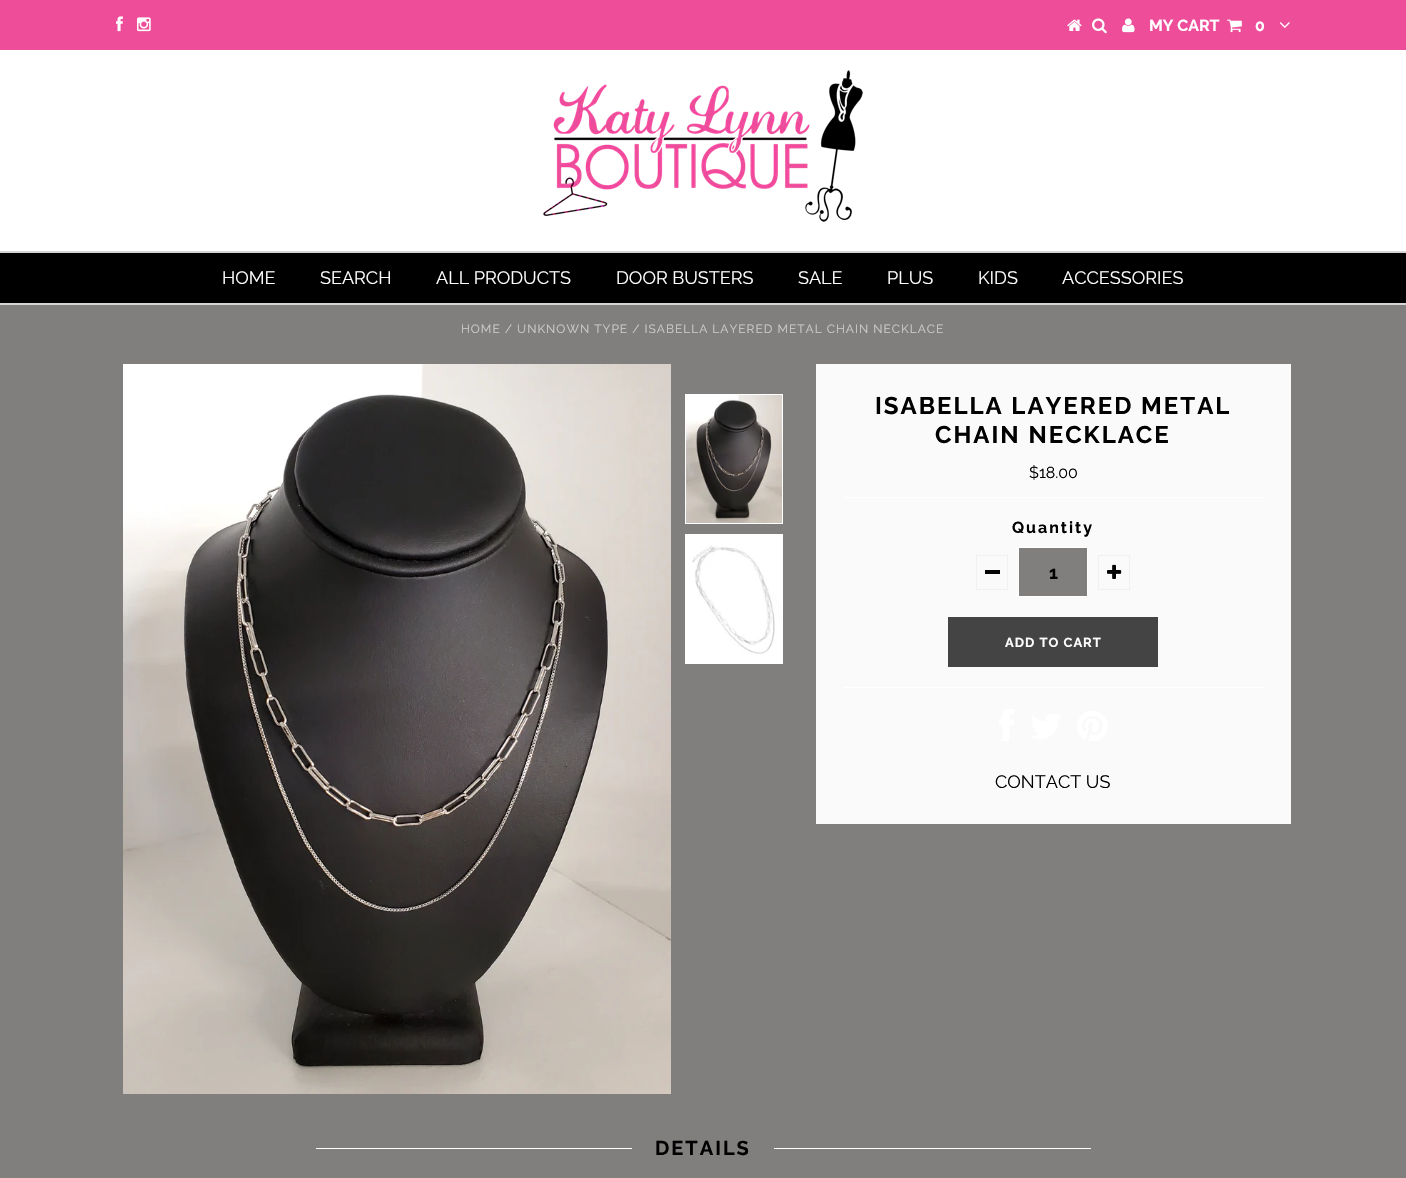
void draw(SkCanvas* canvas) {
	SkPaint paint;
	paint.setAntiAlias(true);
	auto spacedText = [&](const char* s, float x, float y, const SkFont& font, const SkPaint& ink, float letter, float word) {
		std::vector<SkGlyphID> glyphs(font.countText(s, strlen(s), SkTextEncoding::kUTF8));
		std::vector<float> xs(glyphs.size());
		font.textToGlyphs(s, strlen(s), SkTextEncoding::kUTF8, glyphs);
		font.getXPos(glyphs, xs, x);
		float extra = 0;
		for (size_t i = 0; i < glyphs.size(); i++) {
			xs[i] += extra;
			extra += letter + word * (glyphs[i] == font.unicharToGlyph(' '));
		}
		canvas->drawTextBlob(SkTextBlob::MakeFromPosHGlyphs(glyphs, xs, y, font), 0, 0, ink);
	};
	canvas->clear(0xff817e7e);
	paint.setColor(0xffee4d9a);
	canvas->drawRect(SkRect::MakeXYWH(0, 0, 1406, 50), paint);
	canvas->drawImageRect(SkImages::DeferredFromEncodedData(SkData::MakeFromFileName("img1.png")), SkRect::MakeXYWH(116, 16, 7, 16), SkSamplingOptions());
	canvas->drawImageRect(SkImages::DeferredFromEncodedData(SkData::MakeFromFileName("img2.png")), SkRect::MakeXYWH(137, 17, 14, 15), SkSamplingOptions());
	canvas->drawImageRect(SkImages::DeferredFromEncodedData(SkData::MakeFromFileName("img3.png")), SkRect::MakeXYWH(1067, 19, 15, 12), SkSamplingOptions());
	canvas->drawImageRect(SkImages::DeferredFromEncodedData(SkData::MakeFromFileName("img4.png")), SkRect::MakeXYWH(1092, 18, 15, 16), SkSamplingOptions());
	canvas->drawImageRect(SkImages::DeferredFromEncodedData(SkData::MakeFromFileName("img5.png")), SkRect::MakeXYWH(1122, 18, 13, 15), SkSamplingOptions());
	SkFont f1(fontMgr->matchFamilyStyle("Raleway", SkFontStyle::Bold()), 16);
	f1.setSubpixel(true);
	paint.setColor(0xffffffff);
	canvas->drawString("MY CART", 1149, 31, f1, paint);
	canvas->drawImageRect(SkImages::DeferredFromEncodedData(SkData::MakeFromFileName("img6.png")), SkRect::MakeXYWH(1227, 19, 15, 14), SkSamplingOptions());
	canvas->drawString("0", 1255, 31, f1, paint);
	canvas->drawImageRect(SkImages::DeferredFromEncodedData(SkData::MakeFromFileName("img7.png")), SkRect::MakeXYWH(1279, 22, 11, 6), SkSamplingOptions());
	canvas->drawRect(SkRect::MakeXYWH(0, 50, 1406, 201), paint);
	canvas->drawImageRect(SkImages::DeferredFromEncodedData(SkData::MakeFromFileName("img8.png")), SkRect::MakeXYWH(543, 70, 320, 152), SkSamplingOptions());
	paint.setColor(0xff000000);
	canvas->drawRect(SkRect::MakeXYWH(0, 253, 1406, 50), paint);
	paint.setColor(0xffd5d5d5);
	canvas->drawRect(SkRect::MakeXYWH(0, 251, 1406, 2), paint);
	canvas->drawRect(SkRect::MakeXYWH(0, 303, 1406, 2), paint);
	SkFont f2(fontMgr->matchFamilyStyle("Raleway", SkFontStyle::Normal()), 18);
	f2.setSubpixel(true);
	paint.setColor(0xffffffff);
	canvas->drawString("HOME", 222, 284, f2, paint);
	canvas->drawString("SEARCH", 320, 284, f2, paint);
	canvas->drawString("ALL PRODUCTS", 436, 284, f2, paint);
	canvas->drawString("DOOR BUSTERS", 616, 284, f2, paint);
	canvas->drawString("SALE", 798, 284, f2, paint);
	canvas->drawString("PLUS", 887, 284, f2, paint);
	canvas->drawString("KIDS", 978, 284, f2, paint);
	canvas->drawString("ACCESSORIES", 1062, 284, f2, paint);
	SkFont f3(fontMgr->matchFamilyStyle("Raleway", SkFontStyle::Normal()), 12);
	f3.setSubpixel(true);
	paint.setColor(0xffcccccc);
	spacedText("HOME / UNKNOWN TYPE / ISABELLA LAYERED METAL CHAIN NECKLACE", 461, 333, f3, paint, 1, 0);
	canvas->drawImageRect(SkImages::DeferredFromEncodedData(SkData::MakeFromFileName("img9.png")), SkRect::MakeXYWH(123, 364, 548, 730), SkSamplingOptions());
	paint.setStroke(true);
	paint.setStrokeWidth(1);
	paint.setColor(0xffffffff);
	canvas->drawRect(SkRect::MakeXYWH(685.5, 394.5, 97, 129), paint);
	canvas->drawImageRect(SkImages::DeferredFromEncodedData(SkData::MakeFromFileName("img10.png")), SkRect::MakeXYWH(686, 395, 96, 128), SkSamplingOptions());
	canvas->drawRect(SkRect::MakeXYWH(685.5, 534.5, 97, 129), paint);
	canvas->drawImageRect(SkImages::DeferredFromEncodedData(SkData::MakeFromFileName("img11.png")), SkRect::MakeXYWH(686, 535, 96, 128), SkSamplingOptions());
	paint.setStroke(false);
	paint.setColor(0xfffafafa);
	canvas->drawRect(SkRect::MakeXYWH(816, 364, 475, 460), paint);
	SkFont f4(fontMgr->matchFamilyStyle("Raleway", SkFontStyle::Bold()), 24);
	f4.setSubpixel(true);
	paint.setColor(0xff000000);
	spacedText("ISABELLA LAYERED METAL", 875, 414, f4, paint, 2, 0);
	spacedText("CHAIN NECKLACE", 935, 443, f4, paint, 2, 0);
	SkFont f5(fontMgr->matchFamilyStyle("Raleway", SkFontStyle::Normal()), 16);
	f5.setSubpixel(true);
	canvas->drawString("$18.00", 1029, 478, f5, paint);
	paint.setColor(0xffffffff);
	canvas->drawRect(SkRect::MakeXYWH(843, 497, 421, 1), paint);
	canvas->drawRect(SkRect::MakeXYWH(843, 687, 421, 1), paint);
	paint.setColor(0xff000000);
	spacedText("Quantity", 1012, 533, f1, paint, 2, 0);
	paint.setStroke(true);
	paint.setColor(0xfff0f0f0);
	canvas->drawRect(SkRect::MakeXYWH(976.5, 555.5, 31, 34), paint);
	paint.setStroke(false);
	paint.setColor(0xff050505);
	canvas->drawRect(SkRect::MakeXYWH(985, 570, 15, 4), paint);
	paint.setColor(0xff817e7e);
	canvas->drawRect(SkRect::MakeXYWH(1018.5, 547.5, 69, 49), paint);
	paint.setStroke(true);
	paint.setColor(0xffffffff);
	canvas->drawRect(SkRect::MakeXYWH(1018.5, 547.5, 69, 49), paint);
	SkFont f6(fontMgr->matchFamilyStyle("Raleway", SkFontStyle::Bold()), 18);
	f6.setSubpixel(true);
	paint.setStroke(false);
	paint.setColor(0xff000000);
	canvas->drawString("1", 1049, 579, f6, paint);
	paint.setStroke(true);
	paint.setColor(0xfff0f0f0);
	canvas->drawRect(SkRect::MakeXYWH(1098.5, 555.5, 31, 34), paint);
	canvas->drawImageRect(SkImages::DeferredFromEncodedData(SkData::MakeFromFileName("img12.png")), SkRect::MakeXYWH(1107, 564, 15, 15), SkSamplingOptions());
	paint.setStroke(false);
	paint.setColor(0xff444444);
	canvas->drawRect(SkRect::MakeXYWH(948, 617, 210, 50), paint);
	SkFont f7(fontMgr->matchFamilyStyle("Raleway", SkFontStyle::Bold()), 13);
	f7.setSubpixel(true);
	paint.setColor(0xffffffff);
	spacedText("ADD TO CART", 1005, 647, f7, paint, 1, 0);
	canvas->drawImageRect(SkImages::DeferredFromEncodedData(SkData::MakeFromFileName("img13.png")), SkRect::MakeXYWH(999, 709, 15, 32), SkSamplingOptions());
	canvas->drawImageRect(SkImages::DeferredFromEncodedData(SkData::MakeFromFileName("img14.png")), SkRect::MakeXYWH(1032, 714, 28, 25), SkSamplingOptions());
	canvas->drawImageRect(SkImages::DeferredFromEncodedData(SkData::MakeFromFileName("img15.png")), SkRect::MakeXYWH(1077, 711, 31, 30), SkSamplingOptions());
	paint.setColor(0xff000000);
	canvas->drawString("CONTACT US", 995, 788, f2, paint);
	paint.setColor(0xffffffff);
	canvas->drawRect(SkRect::MakeXYWH(316, 1148, 775, 1), paint);
	paint.setColor(0xff817e7e);
	canvas->drawRect(SkRect::MakeXYWH(632, 1148, 142, 1), paint);
	SkFont f8(fontMgr->matchFamilyStyle("Raleway", SkFontStyle::Bold()), 20);
	f8.setSubpixel(true);
	paint.setColor(0xff000000);
	spacedText("DETAILS", 655, 1155, f8, paint, 2, 0);
}
